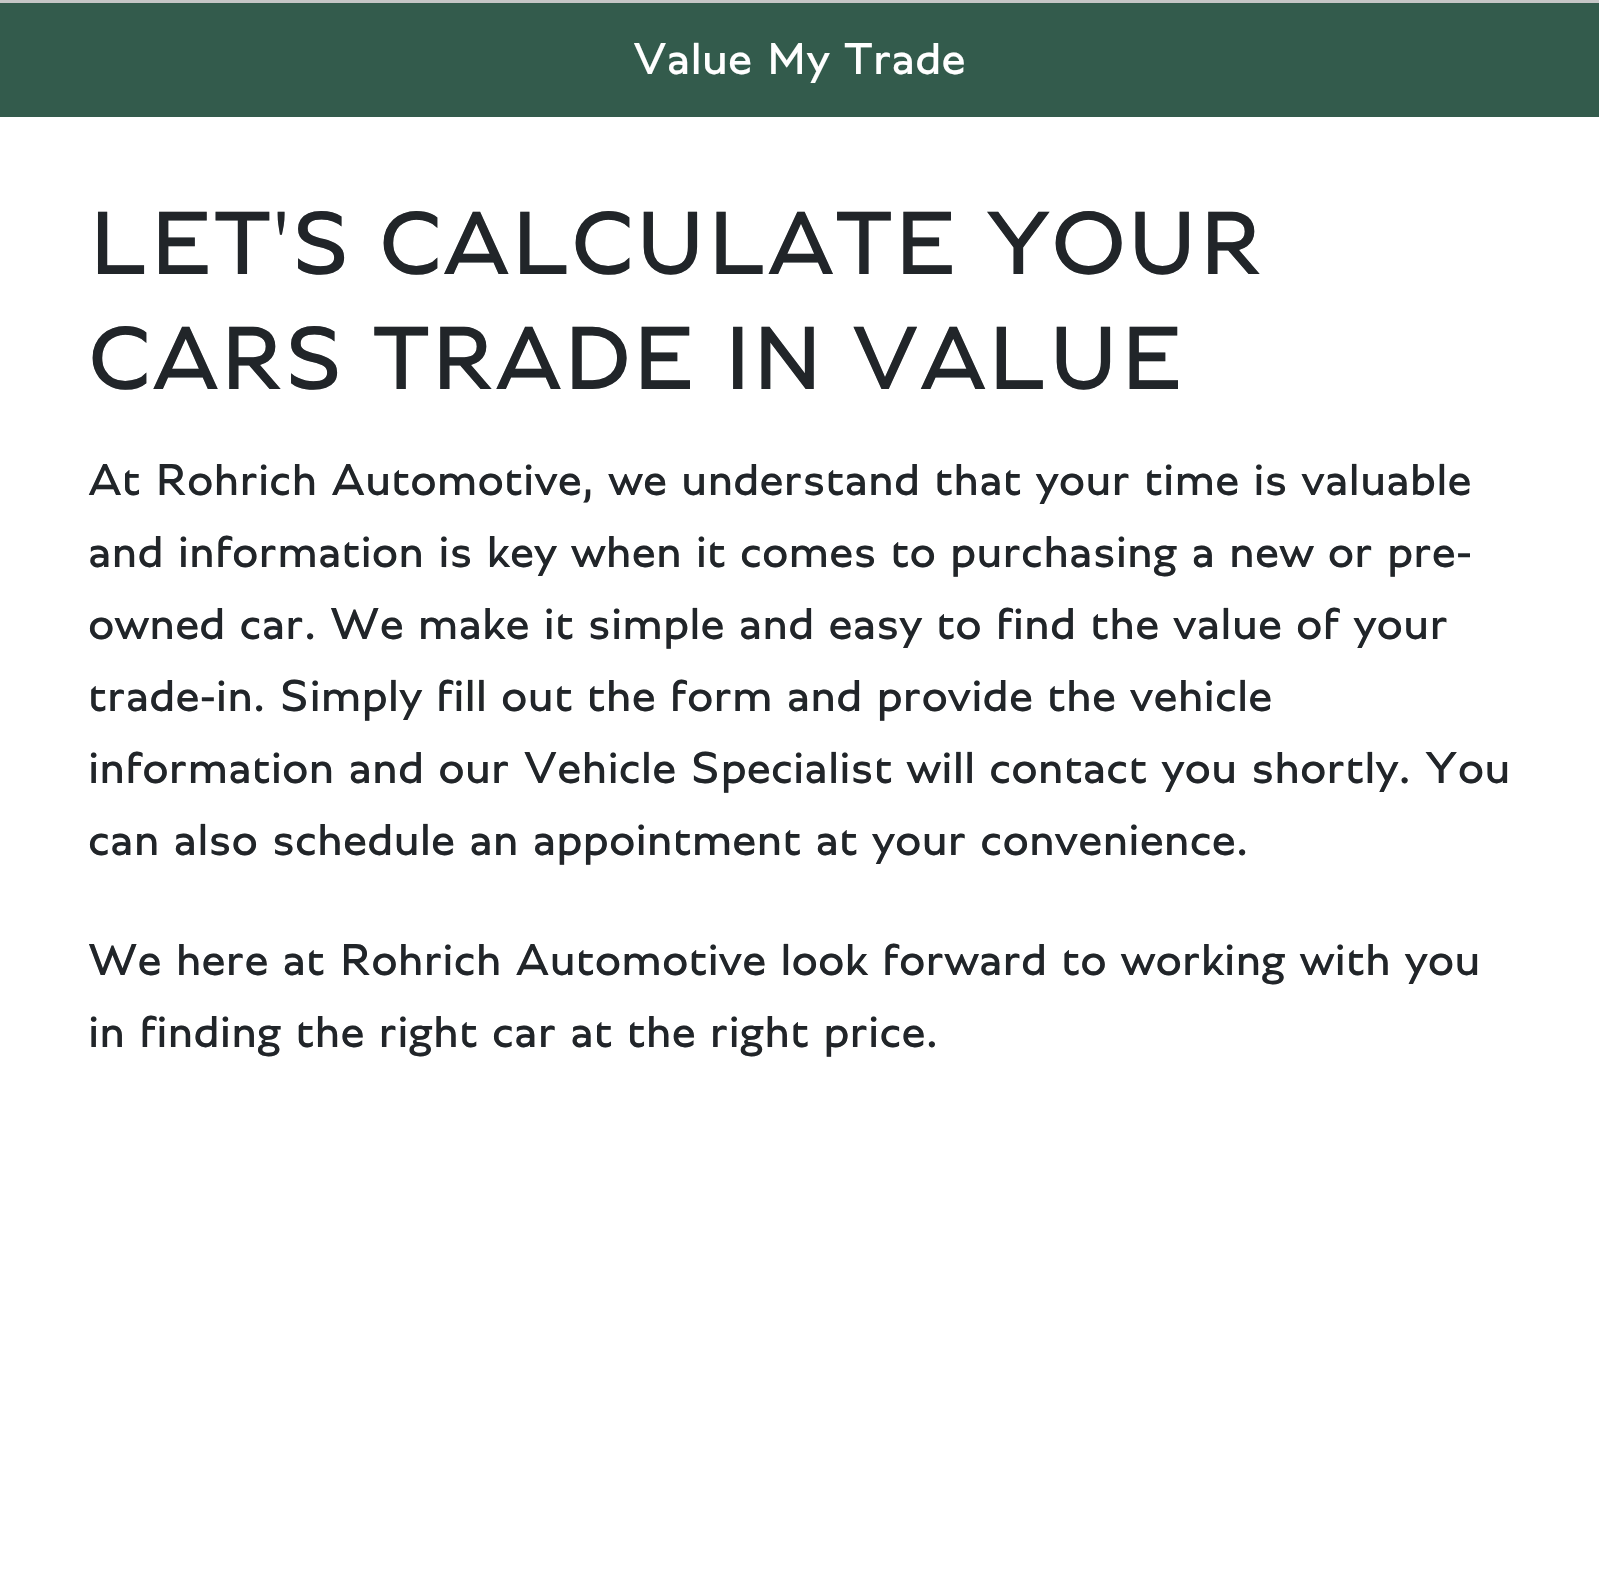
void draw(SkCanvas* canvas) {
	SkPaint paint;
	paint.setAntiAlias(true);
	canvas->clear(0xffffffff);
	paint.setColor(0xff335b4c);
	canvas->drawRect(SkRect::MakeXYWH(0, 3, 1599, 114), paint);
	paint.setColor(0xffc6c6c6);
	canvas->drawRect(SkRect::MakeXYWH(0, 0, 1599, 3), paint);
	SkFont f1(fontMgr->matchFamilyStyle("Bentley", SkFontStyle::Normal()), 48);
	f1.setSubpixel(true);
	paint.setColor(0xffffffff);
	canvas->drawString("Value My Trade", 633, 74, f1, paint);
	SkFont f2(fontMgr->matchFamilyStyle("Bentley", SkFontStyle::Normal()), 96);
	f2.setSubpixel(true);
	paint.setColor(0xff212529);
	canvas->drawString("LET'S CALCULATE YOUR", 88, 274, f2, paint);
	canvas->drawString("CARS TRADE IN VALUE", 88, 389, f2, paint);
	canvas->drawString("At Rohrich Automotive, we understand that your time is valuable", 88, 495, f1, paint);
	canvas->drawString("and information is key when it comes to purchasing a new or pre-", 88, 567, f1, paint);
	canvas->drawString("owned car. We make it simple and easy to find the value of your", 88, 639, f1, paint);
	canvas->drawString("trade-in. Simply fill out the form and provide the vehicle", 88, 711, f1, paint);
	canvas->drawString("information and our Vehicle Specialist will contact you shortly. You", 88, 783, f1, paint);
	canvas->drawString("can also schedule an appointment at your convenience.", 88, 855, f1, paint);
	canvas->drawString("We here at Rohrich Automotive look forward to working with you", 88, 975, f1, paint);
	canvas->drawString("in finding the right car at the right price.", 88, 1047, f1, paint);
}
